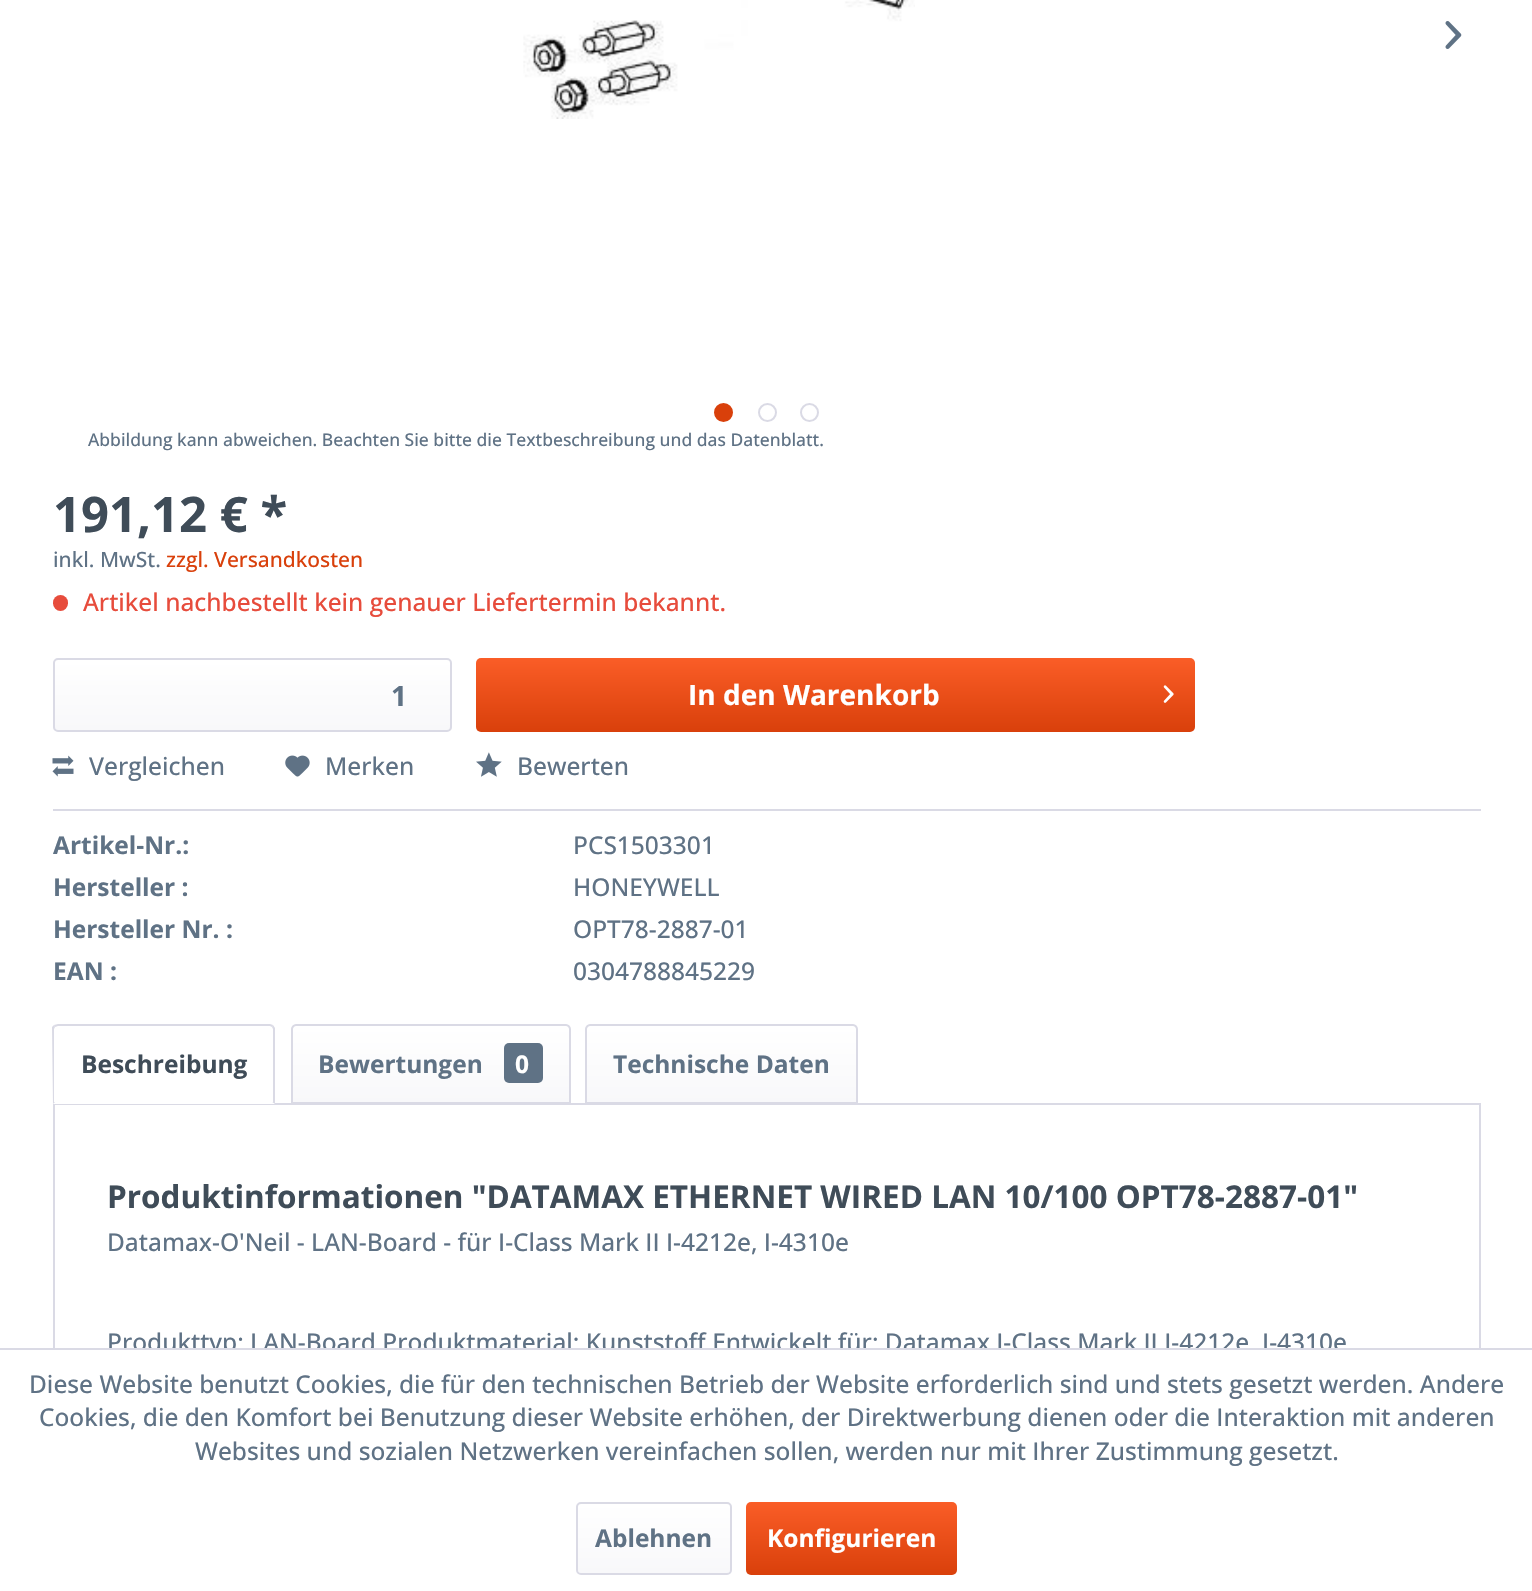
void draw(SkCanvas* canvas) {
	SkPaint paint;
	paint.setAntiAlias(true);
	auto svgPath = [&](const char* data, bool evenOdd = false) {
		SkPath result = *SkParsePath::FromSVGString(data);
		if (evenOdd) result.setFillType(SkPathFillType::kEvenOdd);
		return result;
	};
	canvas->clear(0xffffffff);
	canvas->drawImageRect(SkImages::DeferredFromEncodedData(SkData::MakeFromFileName("img1.png")), SkRect::MakeXYWH(523, 0, 392, 119), SkSamplingOptions());
	canvas->drawImageRect(SkImages::DeferredFromEncodedData(SkData::MakeFromFileName("img2.png")), SkRect::MakeXYWH(1445, 21, 17, 28), SkSamplingOptions());
	paint.setColor(0xffd9400b);
	canvas->drawCircle(723.5, 412.5, 8.5, paint);
	paint.setStroke(true);
	paint.setStrokeWidth(2);
	canvas->drawCircle(723.5, 412.5, 8.5, paint);
	paint.setColor(0xffdadae5);
	canvas->drawCircle(767.5, 412.5, 8.5, paint);
	canvas->drawCircle(809.5, 412.5, 8.5, paint);
	SkFont f1(fontMgr->matchFamilyStyle("Open Sans", SkFontStyle(500, SkFontStyle::kNormal_Width, SkFontStyle::kUpright_Slant)), 17.5);
	f1.setSubpixel(true);
	paint.setStroke(false);
	paint.setColor(0xff5f7285);
	canvas->drawString("Abbildung kann abweichen. Beachten Sie bitte die Textbeschreibung und das Datenblatt.", 88, 446, f1, paint);
	SkFont f2(fontMgr->matchFamilyStyle("Open Sans", SkFontStyle::Bold()), 49);
	f2.setSubpixel(true);
	paint.setColor(0xff3f4c58);
	canvas->drawString("191,12 € *", 53, 532, f2, paint);
	SkFont f3(fontMgr->matchFamilyStyle("Open Sans", SkFontStyle(500, SkFontStyle::kNormal_Width, SkFontStyle::kUpright_Slant)), 21);
	f3.setSubpixel(true);
	paint.setColor(0xff5f7285);
	canvas->drawString("inkl. MwSt.", 53, 567, f3, paint);
	paint.setColor(0xffd9400b);
	canvas->drawString("zzgl. Versandkosten", 166, 567, f3, paint);
	paint.setColor(0xffe74c3c);
	canvas->drawRoundRect(SkRect::MakeXYWH(53, 595, 15, 16), 7.5, 7.5, paint);
	SkFont f4(fontMgr->matchFamilyStyle("Open Sans", SkFontStyle(500, SkFontStyle::kNormal_Width, SkFontStyle::kUpright_Slant)), 24.5);
	f4.setSubpixel(true);
	canvas->drawString("Artikel nachbestellt kein genauer Liefertermin bekannt.", 83, 611, f4, paint);
	canvas->save();
	canvas->clipPath(svgPath("M58 658H447C450 658 452 660 452 663V727C452 730 450 732 447 732H58C55 732 53 730 53 727V663C53 660 55 658 58 658Z"), true);
	{
		const SkColor colors[] = {0xffffffff, 0xfff8f8fa};
		const float stops[] = {0, 1};
		const SkPoint ends[] = {{252, 660}, {252, 730}};
		paint.setShader(SkGradientShader::MakeLinear(ends, colors, stops, 2, SkTileMode::kClamp));
		paint.setAlpha(255);
	}
	canvas->drawRect(SkRect::MakeXYWH(53, 660, 399, 70), paint);
	canvas->restore();
	paint.setStroke(true);
	paint.setShader(nullptr);
	paint.setColor(0xffdadae5);
	canvas->drawRoundRect(SkRect::MakeXYWH(54, 659, 397, 72), 4, 4, paint);
	SkFont f5(fontMgr->matchFamilyStyle("Open Sans", SkFontStyle::Bold()), 28);
	f5.setSubpixel(true);
	paint.setStroke(false);
	paint.setColor(0xff5f7285);
	canvas->drawString("1", 391, 706, f5, paint);
	{
		const SkColor colors[] = {0xfffa5d27, 0xffd9400b};
		const float stops[] = {0, 1};
		const SkPoint ends[] = {{836, 658}, {836, 732}};
		paint.setShader(SkGradientShader::MakeLinear(ends, colors, stops, 2, SkTileMode::kClamp));
		paint.setAlpha(255);
	}
	canvas->drawRoundRect(SkRect::MakeXYWH(476, 658, 719, 74), 5, 5, paint);
	paint.setShader(nullptr);
	paint.setColor(0xffffffff);
	canvas->drawString("In den Warenkorb", 688, 705, f5, paint);
	canvas->drawImageRect(SkImages::DeferredFromEncodedData(SkData::MakeFromFileName("img3.png")), SkRect::MakeXYWH(1163, 685, 11, 18), SkSamplingOptions());
	paint.setColor(0xffdadae5);
	canvas->drawRect(SkRect::MakeXYWH(53, 809, 1428, 2), paint);
	canvas->drawImageRect(SkImages::DeferredFromEncodedData(SkData::MakeFromFileName("img4.png")), SkRect::MakeXYWH(52, 755, 22, 22), SkSamplingOptions());
	paint.setColor(0xff5f7285);
	canvas->drawString("Vergleichen", 89, 775, f4, paint);
	canvas->drawImageRect(SkImages::DeferredFromEncodedData(SkData::MakeFromFileName("img5.png")), SkRect::MakeXYWH(285, 755, 25, 22), SkSamplingOptions());
	canvas->drawString("Merken", 325, 775, f4, paint);
	canvas->drawImageRect(SkImages::DeferredFromEncodedData(SkData::MakeFromFileName("img6.png")), SkRect::MakeXYWH(476, 752, 26, 25), SkSamplingOptions());
	canvas->drawString("Bewerten", 517, 775, f4, paint);
	SkFont f6(fontMgr->matchFamilyStyle("Open Sans", SkFontStyle::Bold()), 24.5);
	f6.setSubpixel(true);
	canvas->drawString("Artikel-Nr.:", 53, 854, f6, paint);
	canvas->drawString("PCS1503301", 573, 854, f4, paint);
	canvas->drawString("Hersteller :", 53, 896, f6, paint);
	canvas->drawString("HONEYWELL", 573, 896, f4, paint);
	canvas->drawString("Hersteller Nr. :", 53, 938, f6, paint);
	canvas->drawString("OPT78-2887-01", 573, 938, f4, paint);
	canvas->drawString("EAN :", 53, 980, f6, paint);
	canvas->drawString("0304788845229", 573, 980, f4, paint);
	paint.setStroke(true);
	paint.setColor(0xffdadae5);
	canvas->drawRect(SkRect::MakeXYWH(54, 1104, 1426, 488), paint);
	paint.setStroke(false);
	paint.setColor(0xffffffff);
	canvas->drawPath(svgPath("M58 1024H270C273 1024 275 1026 275 1029V1104H53V1029C53 1026 55 1024 58 1024Z"), paint);
	paint.setColor(0xffdadae5);
	canvas->drawPath(svgPath("M58 1024L54 1025L55 1027L58 1026H270L272 1027L273 1025L270 1024Z"), paint);
	canvas->drawPath(svgPath("M273 1025L275 1028V1104L272 1102H273V1029L272 1027Z"), paint);
	paint.setColor(0xffffffff);
	canvas->drawPath(svgPath("M274 1104H53L55 1102H272Z"), paint);
	paint.setColor(0xffdadae5);
	canvas->drawPath(svgPath("M52 1027L54 1025L55 1027L54 1029V1102H55L53 1104Z"), paint);
	paint.setColor(0xff3f4c58);
	canvas->drawString("Beschreibung", 81, 1073, f6, paint);
	{
		const SkColor colors[] = {0xffffffff, 0xfff8f8fa};
		const float stops[] = {0, 1};
		const SkPoint ends[] = {{431, 1026}, {431, 1103}};
		paint.setShader(SkGradientShader::MakeLinear(ends, colors, stops, 2, SkTileMode::kClamp));
		paint.setAlpha(255);
	}
	canvas->drawPath(svgPath("M296 1026H565C567 1026 569 1028 569 1030V1103H292V1030C292 1028 294 1026 296 1026Z"), paint);
	paint.setStroke(true);
	paint.setShader(nullptr);
	paint.setColor(0xffdadae5);
	canvas->drawPath(svgPath("M296 1025H566C568 1025 570 1027 570 1029V1103H292V1029C292 1027 294 1025 296 1025Z"), paint);
	paint.setStroke(false);
	paint.setColor(0xff5f7285);
	canvas->drawString("Bewertungen", 318, 1073, f6, paint);
	canvas->drawRoundRect(SkRect::MakeXYWH(504, 1043, 39, 40), 5, 5, paint);
	paint.setColor(0xffffffff);
	canvas->drawString("0", 515, 1073, f6, paint);
	{
		const SkColor colors[] = {0xffffffff, 0xfff8f8fa};
		const float stops[] = {0, 1};
		const SkPoint ends[] = {{721, 1026}, {721, 1103}};
		paint.setShader(SkGradientShader::MakeLinear(ends, colors, stops, 2, SkTileMode::kClamp));
		paint.setAlpha(255);
	}
	canvas->drawPath(svgPath("M590 1026H852C854 1026 856 1028 856 1030V1103H586V1030C586 1028 588 1026 590 1026Z"), paint);
	paint.setStroke(true);
	paint.setShader(nullptr);
	paint.setColor(0xffdadae5);
	canvas->drawPath(svgPath("M590 1025H853C855 1025 857 1027 857 1029V1103H586V1029C586 1027 588 1025 590 1025Z"), paint);
	paint.setStroke(false);
	paint.setColor(0xff5f7285);
	canvas->drawString("Technische Daten", 613, 1073, f6, paint);
	SkFont f7(fontMgr->matchFamilyStyle("Open Sans", SkFontStyle::Bold()), 31.5);
	f7.setSubpixel(true);
	paint.setColor(0xff3f4c58);
	canvas->drawString("Produktinformationen \"DATAMAX ETHERNET WIRED LAN 10/100 OPT78-2887-01\"", 107, 1208, f7, paint);
	paint.setColor(0xff5f7285);
	canvas->drawString("Datamax-O'Neil - LAN-Board - für I-Class Mark II I-4212e, I-4310e", 107, 1251, f4, paint);
	canvas->drawString("Produkttyp: LAN-Board,Produktmaterial: Kunststoff,Entwickelt für: Datamax I-Class Mark II I-4212e, I-4310e", 107, 1351, f4, paint);
	paint.setColor(0xffffffff);
	canvas->drawRect(SkRect::MakeXYWH(53, 1350, 1428, 241), paint);
	paint.setColor(0xffdadae5);
	canvas->drawRect(SkRect::MakeXYWH(0, 1348, 1532, 2), paint);
	paint.setColor(0xff5f7285);
	canvas->drawString("Diese Website benutzt Cookies, die für den technischen Betrieb der Website erforderlich sind und stets gesetzt werden. Andere", 29, 1393, f4, paint);
	canvas->drawString("Cookies, die den Komfort bei Benutzung dieser Website erhöhen, der Direktwerbung dienen oder die Interaktion mit anderen", 39, 1426, f4, paint);
	canvas->drawString("Websites und sozialen Netzwerken vereinfachen sollen, werden nur mit Ihrer Zustimmung gesetzt.", 195, 1460, f4, paint);
	{
		const SkColor colors[] = {0xffffffff, 0xfff8f8fa};
		const float stops[] = {0, 1};
		const SkPoint ends[] = {{654, 1503}, {654, 1573}};
		paint.setShader(SkGradientShader::MakeLinear(ends, colors, stops, 2, SkTileMode::kClamp));
		paint.setAlpha(255);
	}
	canvas->drawRoundRect(SkRect::MakeXYWH(578, 1503, 152, 70), 4, 4, paint);
	paint.setStroke(true);
	paint.setShader(nullptr);
	paint.setColor(0xffdadae5);
	canvas->drawRoundRect(SkRect::MakeXYWH(577, 1503, 154, 71), 4, 4, paint);
	paint.setStroke(false);
	paint.setColor(0xff5f7285);
	canvas->drawString("Ablehnen", 595, 1547, f6, paint);
	{
		const SkColor colors[] = {0xfffa5d27, 0xffd9400b};
		const float stops[] = {0, 1};
		const SkPoint ends[] = {{851, 1502}, {851, 1575}};
		paint.setShader(SkGradientShader::MakeLinear(ends, colors, stops, 2, SkTileMode::kClamp));
		paint.setAlpha(255);
	}
	canvas->drawRoundRect(SkRect::MakeXYWH(746, 1502, 211, 73), 5, 5, paint);
	paint.setShader(nullptr);
	paint.setColor(0xffffffff);
	canvas->drawString("Konfigurieren", 767, 1547, f6, paint);
}
